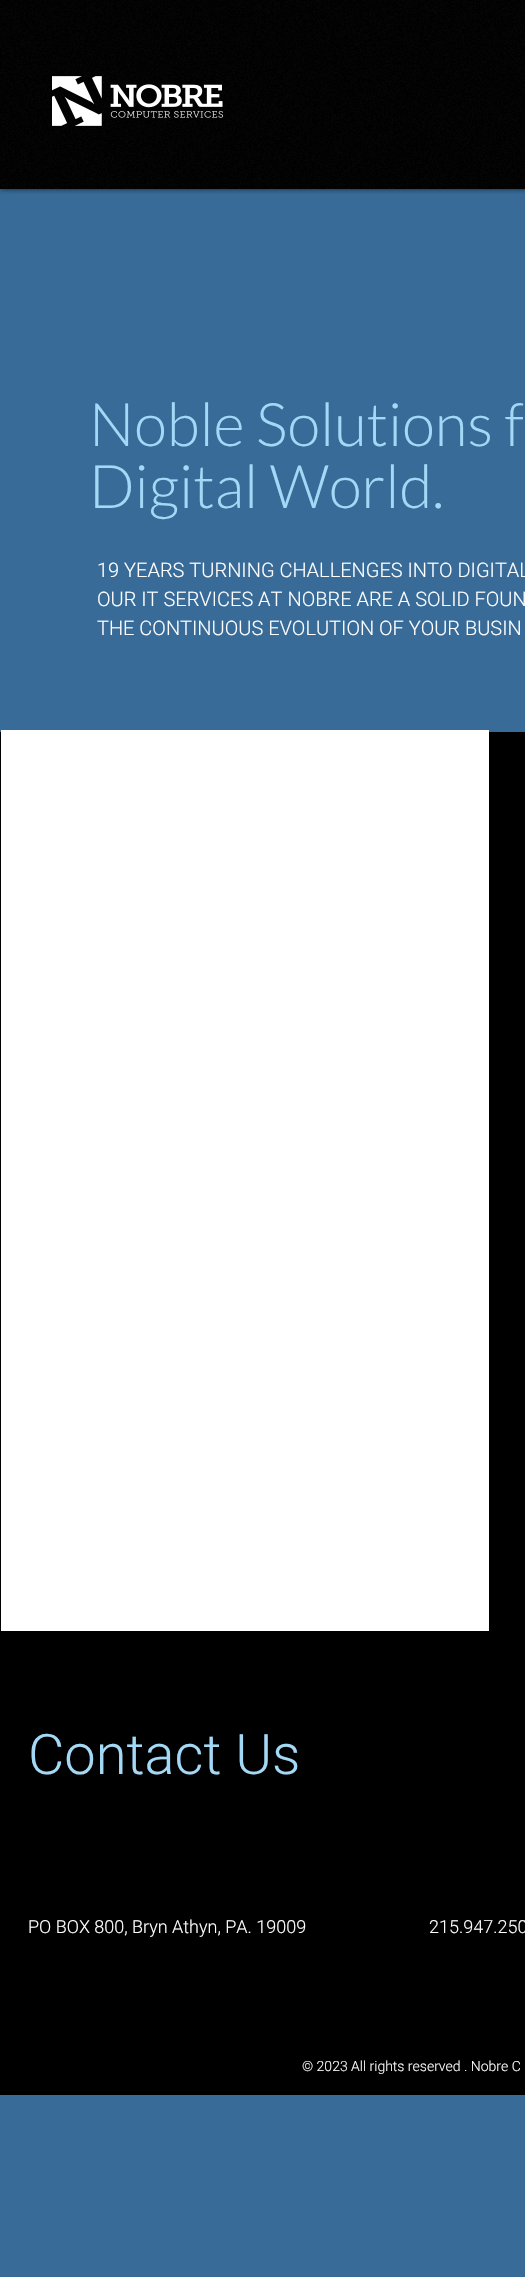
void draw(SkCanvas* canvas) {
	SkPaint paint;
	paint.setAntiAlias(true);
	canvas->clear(0xff386b98);
	paint.setColor(0xb3000000);
	paint.setMaskFilter(SkMaskFilter::MakeBlur(kNormal_SkBlurStyle, 2.5));
	canvas->drawRect(SkRect::MakeXYWH(0, 0, 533, 189), paint);
	paint.setMaskFilter(nullptr);
	paint.setColor(0xff000000);
	canvas->drawRect(SkRect::MakeXYWH(0, 0, 525, 189), paint);
	canvas->drawImageRect(SkImages::DeferredFromEncodedData(SkData::MakeFromFileName("img1.png")), SkRect::MakeXYWH(0, 0, 525, 189), SkSamplingOptions());
	canvas->drawImageRect(SkImages::DeferredFromEncodedData(SkData::MakeFromFileName("img2.png")), SkRect::MakeXYWH(52, 76, 171, 50), SkSamplingOptions());
	SkFont f1(fontMgr->matchFamilyStyle("Lato", SkFontStyle(300, SkFontStyle::kNormal_Width, SkFontStyle::kUpright_Slant)), 60);
	f1.setSubpixel(true);
	paint.setColor(0xffa3d9f6);
	canvas->drawString("Noble Solutions f", 89, 446, f1, paint);
	canvas->drawString("Digital World.", 89, 508, f1, paint);
	SkFont f2(fontMgr->matchFamilyStyle("Heebo", SkFontStyle(300, SkFontStyle::kNormal_Width, SkFontStyle::kUpright_Slant)), 20);
	f2.setSubpixel(true);
	paint.setColor(0xffffffff);
	canvas->drawString("19 YEARS TURNING CHALLENGES INTO DIGITAL", 97, 577, f2, paint);
	canvas->drawString("OUR IT SERVICES AT NOBRE ARE A SOLID FOUN", 97, 606, f2, paint);
	canvas->drawString("THE CONTINUOUS EVOLUTION OF YOUR BUSIN", 97, 635, f2, paint);
	paint.setColor(0xff000000);
	canvas->drawRect(SkRect::MakeXYWH(0, 732, 525, 1363), paint);
	paint.setColor(0xffffffff);
	canvas->drawRect(SkRect::MakeXYWH(1, 730, 488, 901), paint);
	SkFont f3(fontMgr->matchFamilyStyle("Heebo", SkFontStyle(300, SkFontStyle::kNormal_Width, SkFontStyle::kUpright_Slant)), 56);
	f3.setSubpixel(true);
	paint.setColor(0xffa3d9f6);
	canvas->drawString("Contact Us", 28, 1774, f3, paint);
	SkFont f4(fontMgr->matchFamilyStyle("Heebo", SkFontStyle(300, SkFontStyle::kNormal_Width, SkFontStyle::kUpright_Slant)), 18);
	f4.setSubpixel(true);
	paint.setColor(0xffffffff);
	canvas->drawString("PO BOX 800, Bryn Athyn, PA. 19009", 28, 1933, f4, paint);
	canvas->drawString("215.947.250", 429, 1933, f4, paint);
	SkFont f5(fontMgr->matchFamilyStyle("Heebo", SkFontStyle(300, SkFontStyle::kNormal_Width, SkFontStyle::kUpright_Slant)), 14);
	f5.setSubpixel(true);
	canvas->drawString("© 2023 All rights reserved . Nobre C", 302, 2071, f5, paint);
}
